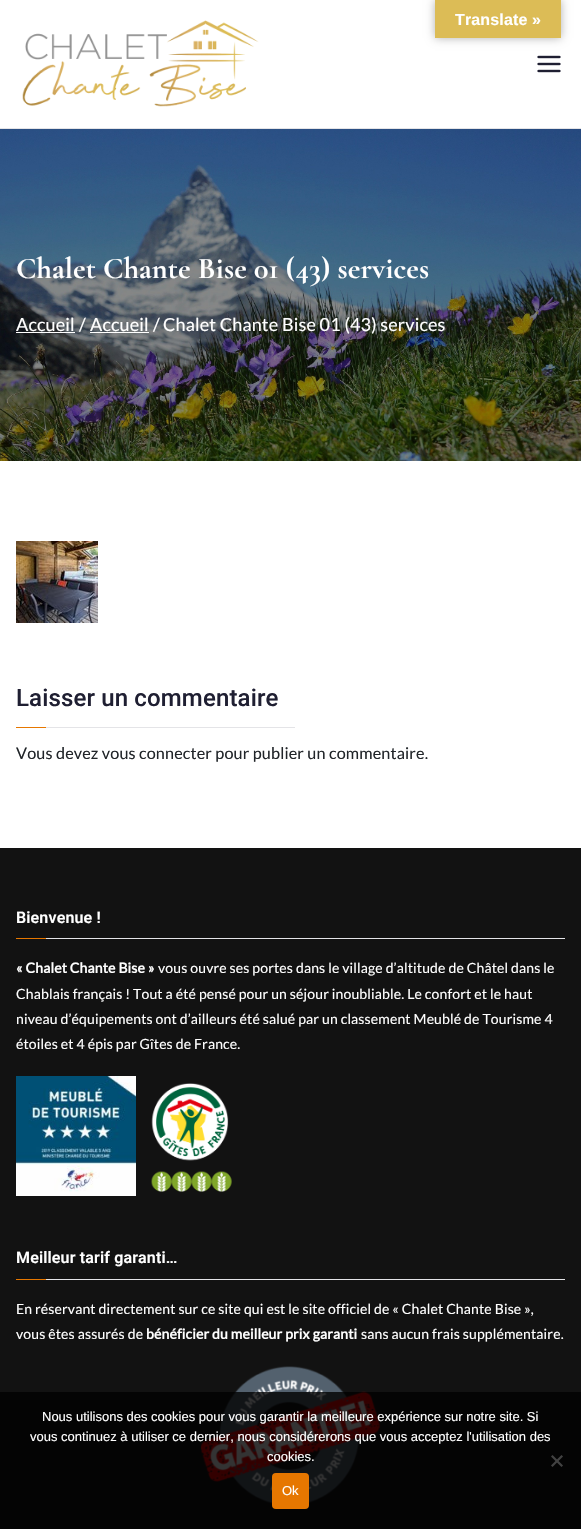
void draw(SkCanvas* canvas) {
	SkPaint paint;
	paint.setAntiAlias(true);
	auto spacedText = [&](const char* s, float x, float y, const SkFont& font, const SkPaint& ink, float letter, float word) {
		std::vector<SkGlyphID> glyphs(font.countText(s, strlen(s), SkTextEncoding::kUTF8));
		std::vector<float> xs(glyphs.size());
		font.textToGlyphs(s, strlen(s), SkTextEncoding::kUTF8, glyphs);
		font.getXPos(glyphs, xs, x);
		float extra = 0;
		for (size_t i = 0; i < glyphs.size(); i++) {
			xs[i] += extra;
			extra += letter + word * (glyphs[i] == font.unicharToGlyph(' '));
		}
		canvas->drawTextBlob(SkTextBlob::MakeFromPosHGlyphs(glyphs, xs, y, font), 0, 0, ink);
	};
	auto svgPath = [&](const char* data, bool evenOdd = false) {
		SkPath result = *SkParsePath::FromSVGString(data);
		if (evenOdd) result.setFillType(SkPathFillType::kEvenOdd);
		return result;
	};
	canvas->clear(0xffe4e4e7);
	paint.setColor(0xffffffff);
	canvas->drawRect(SkRect::MakeXYWH(0, 0, 581, 128), paint);
	paint.setColor(0x4d000000);
	paint.setMaskFilter(SkMaskFilter::MakeBlur(kNormal_SkBlurStyle, 4.5));
	canvas->drawRect(SkRect::MakeXYWH(435, 0, 126, 38), paint);
	paint.setMaskFilter(nullptr);
	paint.setColor(0xffdcbc56);
	canvas->drawRect(SkRect::MakeXYWH(435, 0, 126, 38), paint);
	SkFont f1(fontMgr->matchFamilyStyle("Liberation Sans", SkFontStyle::Bold()), 16);
	f1.setSubpixel(true);
	paint.setColor(0xffffffff);
	spacedText("Translate »", 455, 25, f1, paint, 0.15, 0);
	canvas->drawImageRect(SkImages::DeferredFromEncodedData(SkData::MakeFromFileName("img1.png")), SkRect::MakeXYWH(22, 20, 237, 87), SkSamplingOptions());
	canvas->drawImageRect(SkImages::DeferredFromEncodedData(SkData::MakeFromFileName("img2.png")), SkRect::MakeXYWH(537, 55, 24, 18), SkSamplingOptions());
	canvas->drawImageRect(SkImages::DeferredFromEncodedData(SkData::MakeFromFileName("img3.png")), SkRect::MakeXYWH(0, 129, 581, 332), SkSamplingOptions());
	SkFont f2(fontMgr->matchFamilyStyle("Cormorant Garamond", SkFontStyle(300, SkFontStyle::kNormal_Width, SkFontStyle::kUpright_Slant)), 30);
	f2.setSubpixel(true);
	spacedText("Chalet Chante Bise 01 (43) services", 16, 278, f2, paint, 0.15, 0);
	SkFont f3(fontMgr->matchFamilyStyle("Lato", SkFontStyle::Normal()), 18);
	f3.setSubpixel(true);
	spacedText("Accueil", 16, 331, f3, paint, 0.15, 0);
	canvas->drawRect(SkRect::MakeXYWH(16, 332, 59, 1), paint);
	spacedText("/", 79, 331, f3, paint, 0.15, 0);
	spacedText("Accueil", 90, 331, f3, paint, 0.15, 0);
	canvas->drawRect(SkRect::MakeXYWH(90, 332, 59, 1), paint);
	spacedText("/", 153, 331, f3, paint, 0.15, 0);
	spacedText("Chalet Chante Bise 01 (43) services", 163, 331, f3, paint, 0.15, 0);
	canvas->drawRect(SkRect::MakeXYWH(0, 461, 581, 387), paint);
	canvas->drawImageRect(SkImages::DeferredFromEncodedData(SkData::MakeFromFileName("img4.png")), SkRect::MakeXYWH(16, 541, 82, 82), SkSamplingOptions());
	paint.setColor(0xffe4e4e7);
	canvas->drawRect(SkRect::MakeXYWH(46, 727, 249, 1), paint);
	SkFont f4(fontMgr->matchFamilyStyle("Roboto", SkFontStyle(500, SkFontStyle::kNormal_Width, SkFontStyle::kUpright_Slant)), 24);
	f4.setSubpixel(true);
	paint.setColor(0xff1f1f32);
	spacedText("Laisser un commentaire", 16, 706, f4, paint, 0.15, 0);
	paint.setColor(0xffe67700);
	canvas->drawRect(SkRect::MakeXYWH(16, 727, 30, 1), paint);
	SkFont f5(fontMgr->matchFamilyStyle("Lato", SkFontStyle::Normal()), 16.2);
	f5.setSubpixel(true);
	paint.setColor(0xff212529);
	spacedText("Vous devez vous connecter pour publier un commentaire.", 16, 759, f5, paint, 0.15, 0);
	paint.setColor(0xff121212);
	canvas->drawRect(SkRect::MakeXYWH(0, 848, 581, 681), paint);
	paint.setColor(0xffe4e4e7);
	canvas->drawRect(SkRect::MakeXYWH(46, 938, 519, 1), paint);
	SkFont f6(fontMgr->matchFamilyStyle("Roboto", SkFontStyle(600, SkFontStyle::kNormal_Width, SkFontStyle::kUpright_Slant)), 16);
	f6.setSubpixel(true);
	paint.setColor(0xffffffff);
	spacedText("Bienvenue !", 16, 923, f6, paint, 0.15, 0);
	paint.setColor(0xffe67700);
	canvas->drawRect(SkRect::MakeXYWH(16, 938, 30, 1), paint);
	SkFont f7(fontMgr->matchFamilyStyle("Lato", SkFontStyle::Bold()), 14);
	f7.setSubpixel(true);
	paint.setColor(0xffffffff);
	spacedText("« Chalet Chante Bise »", 16, 973, f7, paint, 0.15, 0);
	SkFont f8(fontMgr->matchFamilyStyle("Lato", SkFontStyle::Normal()), 14);
	f8.setSubpixel(true);
	spacedText("vous ouvre ses portes dans le village d’altitude de Châtel dans le", 158, 973, f8, paint, 0.15, 0);
	spacedText("Chablais français ! Tout a été pensé pour un séjour inoubliable. Le confort et le haut", 16, 999, f8, paint, 0.15, 0);
	spacedText("niveau d’équipements ont d’ailleurs été salué par un classement Meublé de Tourisme 4", 16, 1024, f8, paint, 0.15, 0);
	spacedText("étoiles et 4 épis par Gîtes de France.", 16, 1049, f8, paint, 0.15, 0);
	canvas->drawImageRect(SkImages::DeferredFromEncodedData(SkData::MakeFromFileName("img5.png")), SkRect::MakeXYWH(16, 1076, 120, 120), SkSamplingOptions());
	canvas->drawImageRect(SkImages::DeferredFromEncodedData(SkData::MakeFromFileName("img6.png")), SkRect::MakeXYWH(151, 1083, 81, 109), SkSamplingOptions());
	paint.setColor(0xffe4e4e7);
	canvas->drawRect(SkRect::MakeXYWH(46, 1279, 519, 1), paint);
	paint.setColor(0xffffffff);
	spacedText("Meilleur tarif garanti…", 16, 1263, f6, paint, 0.15, 0);
	paint.setColor(0xffe67700);
	canvas->drawRect(SkRect::MakeXYWH(16, 1279, 30, 1), paint);
	paint.setColor(0xffffffff);
	spacedText("En réservant directement sur ce site qui est le site officiel de « Chalet Chante Bise »,", 16, 1314, f8, paint, 0.15, 0);
	spacedText("vous êtes assurés de", 16, 1339, f8, paint, 0.15, 0);
	spacedText("bénéficier du meilleur prix garanti", 146, 1339, f7, paint, 0.15, 0);
	spacedText("sans aucun frais supplémentaire.", 361, 1339, f8, paint, 0.15, 0);
	canvas->drawImageRect(SkImages::DeferredFromEncodedData(SkData::MakeFromFileName("img7.png")), SkRect::MakeXYWH(201, 1366, 180, 138), SkSamplingOptions());
	paint.setColor(0xcc000000);
	canvas->drawRect(SkRect::MakeXYWH(0, 1392, 581, 137), paint);
	SkFont f9(fontMgr->matchFamilyStyle("Liberation Sans", SkFontStyle::Normal()), 13);
	f9.setSubpixel(true);
	paint.setColor(0xffffffff);
	canvas->drawString("Nous utilisons des cookies pour vous garantir la meilleure expérience sur notre site. Si", 42, 1421, f9, paint);
	canvas->drawString("vous continuez à utiliser ce dernier, nous considérerons que vous acceptez l'utilisation des", 30, 1441, f9, paint);
	canvas->drawString("cookies.", 267, 1461, f9, paint);
	paint.setColor(0xff424242);
	canvas->drawPath(svgPath("M561.5 1455L563 1456.5L552.5 1467L551 1465.5Z"), paint);
	canvas->drawPath(svgPath("M551 1456.5L552.5 1455L563 1465.5L561.5 1467Z"), paint);
	paint.setColor(0xffe67700);
	canvas->drawRoundRect(SkRect::MakeXYWH(272, 1473, 37, 36), 4, 4, paint);
	paint.setColor(0xffffffff);
	canvas->drawString("Ok", 282, 1495, f9, paint);
}
